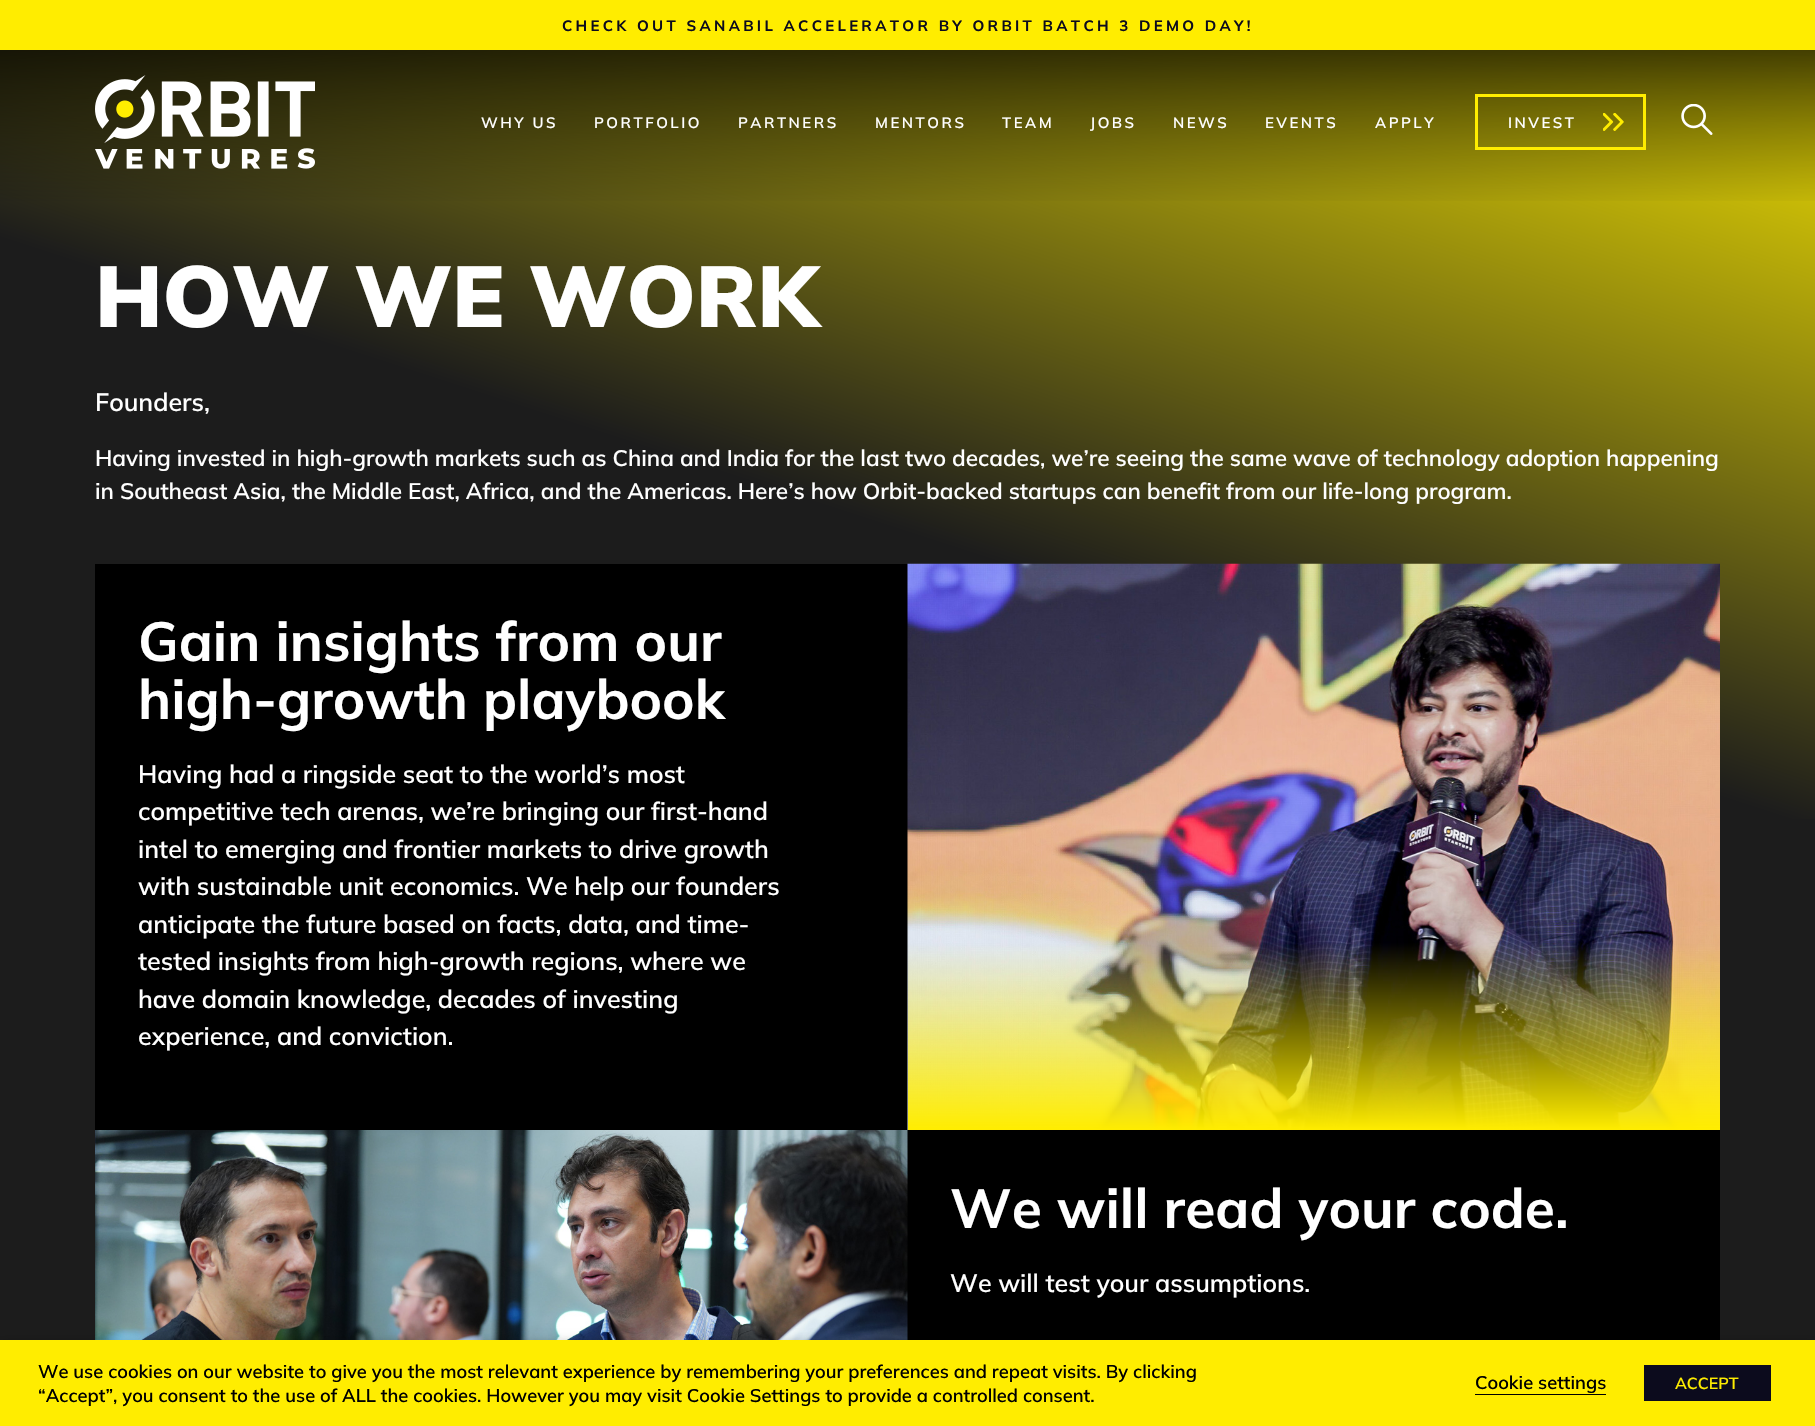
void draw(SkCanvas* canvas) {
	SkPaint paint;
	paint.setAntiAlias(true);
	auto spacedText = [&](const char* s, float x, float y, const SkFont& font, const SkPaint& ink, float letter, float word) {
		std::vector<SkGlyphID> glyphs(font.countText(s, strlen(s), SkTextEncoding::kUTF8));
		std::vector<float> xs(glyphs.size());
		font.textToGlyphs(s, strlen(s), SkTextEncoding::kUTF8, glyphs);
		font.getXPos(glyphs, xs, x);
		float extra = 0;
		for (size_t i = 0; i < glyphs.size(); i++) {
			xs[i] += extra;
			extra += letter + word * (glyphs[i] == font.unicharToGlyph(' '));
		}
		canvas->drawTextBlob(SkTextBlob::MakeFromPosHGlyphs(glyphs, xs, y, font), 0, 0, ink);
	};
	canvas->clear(0xff1c1c1c);
	paint.setColor(0xffffed00);
	canvas->drawRect(SkRect::MakeXYWH(0, 0, 1815, 50), paint);
	SkFont f1(fontMgr->matchFamilyStyle("Mulish", SkFontStyle::Bold()), 15);
	f1.setSubpixel(true);
	paint.setColor(0xff0c0b1d);
	spacedText("CHECK OUT SANABIL ACCELERATOR BY ORBIT BATCH 3 DEMO DAY!", 562, 31, f1, paint, 3.3, 0);
	{
		const SkColor colors[] = {0xff1c1c1c, 0xffffed00};
		const float stops[] = {0.55, 1};
		const SkPoint ends[] = {{637, 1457}, {1178, -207}};
		paint.setShader(SkGradientShader::MakeLinear(ends, colors, stops, 2, SkTileMode::kClamp));
		paint.setAlpha(255);
	}
	canvas->drawRect(SkRect::MakeXYWH(0, 50, 1815, 769), paint);
	{
		const SkColor colors[] = {0xb8000000, 0x00000000};
		const float stops[] = {0, 1};
		const SkPoint ends[] = {{908, 50}, {908, 206}};
		paint.setShader(SkGradientShader::MakeLinear(ends, colors, stops, 2, SkTileMode::kClamp));
		paint.setAlpha(255);
	}
	canvas->drawRect(SkRect::MakeXYWH(0, 50, 1815, 151), paint);
	canvas->drawImageRect(SkImages::DeferredFromEncodedData(SkData::MakeFromFileName("img1.png")), SkRect::MakeXYWH(95, 75, 220, 94), SkSamplingOptions());
	SkFont f2(fontMgr->matchFamilyStyle("Mulish", SkFontStyle(600, SkFontStyle::kNormal_Width, SkFontStyle::kUpright_Slant)), 15);
	f2.setSubpixel(true);
	paint.setShader(nullptr);
	paint.setColor(0xffffffff);
	spacedText("WHY US", 481, 128, f2, paint, 2.5, 0);
	spacedText("PORTFOLIO", 594, 128, f2, paint, 2.5, 0);
	spacedText("PARTNERS", 738, 128, f2, paint, 2.5, 0);
	spacedText("MENTORS", 875, 128, f2, paint, 2.5, 0);
	spacedText("TEAM", 1002, 128, f2, paint, 2.5, 0);
	spacedText("JOBS", 1090, 128, f2, paint, 2.5, 0);
	spacedText("NEWS", 1173, 128, f2, paint, 2.5, 0);
	spacedText("EVENTS", 1265, 128, f2, paint, 2.5, 0);
	spacedText("APPLY", 1375, 128, f2, paint, 2.5, 0);
	paint.setStroke(true);
	paint.setStrokeWidth(3);
	paint.setColor(0xffffed00);
	canvas->drawRect(SkRect::MakeXYWH(1476.5, 95.5, 168, 53), paint);
	paint.setStroke(false);
	paint.setColor(0xffffffff);
	spacedText("INVEST", 1508, 128, f2, paint, 2.5, 0);
	canvas->drawImageRect(SkImages::DeferredFromEncodedData(SkData::MakeFromFileName("img2.png")), SkRect::MakeXYWH(1603, 113, 21, 18), SkSamplingOptions());
	canvas->drawImageRect(SkImages::DeferredFromEncodedData(SkData::MakeFromFileName("img3.png")), SkRect::MakeXYWH(1681, 104, 32, 31), SkSamplingOptions());
	SkFont f3(fontMgr->matchFamilyStyle("Mulish", SkFontStyle(900, SkFontStyle::kNormal_Width, SkFontStyle::kUpright_Slant)), 86.25);
	f3.setSubpixel(true);
	canvas->drawString("HOW WE WORK", 95, 327, f3, paint);
	SkFont f4(fontMgr->matchFamilyStyle("Mulish", SkFontStyle(600, SkFontStyle::kNormal_Width, SkFontStyle::kUpright_Slant)), 25);
	f4.setSubpixel(true);
	canvas->drawString("Founders,", 95, 411, f4, paint);
	SkFont f5(fontMgr->matchFamilyStyle("Mulish", SkFontStyle(600, SkFontStyle::kNormal_Width, SkFontStyle::kUpright_Slant)), 22.5);
	f5.setSubpixel(true);
	canvas->drawString("Having invested in high-growth markets such as China and India for the last two decades, we’re seeing the same wave of technology adoption happening", 95, 466, f5, paint);
	canvas->drawString("in Southeast Asia, the Middle East, Africa, and the Americas. Here’s how Orbit-backed startups can benefit from our life-long program.", 95, 499, f5, paint);
	paint.setColor(0xff000000);
	canvas->drawRect(SkRect::MakeXYWH(95, 564, 813, 566), paint);
	SkFont f6(fontMgr->matchFamilyStyle("Mulish", SkFontStyle::Bold()), 55);
	f6.setSubpixel(true);
	paint.setColor(0xffffffff);
	canvas->drawString("Gain insights from our", 138, 661, f6, paint);
	canvas->drawString("high-growth playbook", 138, 719, f6, paint);
	canvas->drawString("Having had a ringside seat to the world’s most", 138, 783, f4, paint);
	canvas->drawString("competitive tech arenas, we’re bringing our first-hand", 138, 820, f4, paint);
	canvas->drawString("intel to emerging and frontier markets to drive growth", 138, 858, f4, paint);
	canvas->drawString("with sustainable unit economics. We help our founders", 138, 895, f4, paint);
	canvas->drawString("anticipate the future based on facts, data, and time-", 138, 933, f4, paint);
	canvas->drawString("tested insights from high-growth regions, where we", 138, 970, f4, paint);
	canvas->drawString("have domain knowledge, decades of investing", 138, 1008, f4, paint);
	canvas->drawString("experience, and conviction.", 138, 1045, f4, paint);
	canvas->drawImageRect(SkImages::DeferredFromEncodedData(SkData::MakeFromFileName("img4.png")), SkRect::MakeXYWH(907, 563, 813, 567), SkSamplingOptions());
	paint.setColor(0xff000000);
	canvas->drawRect(SkRect::MakeXYWH(907, 1130, 813, 210), paint);
	canvas->drawImageRect(SkImages::DeferredFromEncodedData(SkData::MakeFromFileName("img5.png")), SkRect::MakeXYWH(95, 1130, 813, 210), SkSamplingOptions());
	paint.setColor(0xffffffff);
	canvas->drawString("We will read your code.", 950, 1228, f6, paint);
	canvas->drawString("We will test your assumptions.", 950, 1292, f4, paint);
	paint.setColor(0x80000000);
	paint.setMaskFilter(SkMaskFilter::MakeBlur(kNormal_SkBlurStyle, 6));
	canvas->drawRect(SkRect::MakeXYWH(0, 1346, 1815, 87), paint);
	paint.setMaskFilter(nullptr);
	paint.setColor(0xffffed00);
	canvas->drawRect(SkRect::MakeXYWH(0, 1340, 1815, 86), paint);
	SkFont f7(fontMgr->matchFamilyStyle("Mulish", SkFontStyle(600, SkFontStyle::kNormal_Width, SkFontStyle::kUpright_Slant)), 18.33);
	f7.setSubpixel(true);
	paint.setColor(0xff000000);
	canvas->drawString("We use cookies on our website to give you the most relevant experience by remembering your preferences and repeat visits. By clicking", 38, 1378, f7, paint);
	canvas->drawString("“Accept”, you consent to the use of ALL the cookies. However you may visit Cookie Settings to provide a controlled consent.", 38, 1402, f7, paint);
	canvas->drawString("Cookie settings", 1475, 1389, f7, paint);
	canvas->drawRect(SkRect::MakeXYWH(1475, 1394, 131, 1), paint);
	paint.setColor(0xff0c0b1d);
	canvas->drawRect(SkRect::MakeXYWH(1644, 1365, 127, 36), paint);
	SkFont f8(fontMgr->matchFamilyStyle("Mulish", SkFontStyle(600, SkFontStyle::kNormal_Width, SkFontStyle::kUpright_Slant)), 16);
	f8.setSubpixel(true);
	paint.setColor(0xffffed00);
	canvas->drawString("ACCEPT", 1675, 1389, f8, paint);
}
